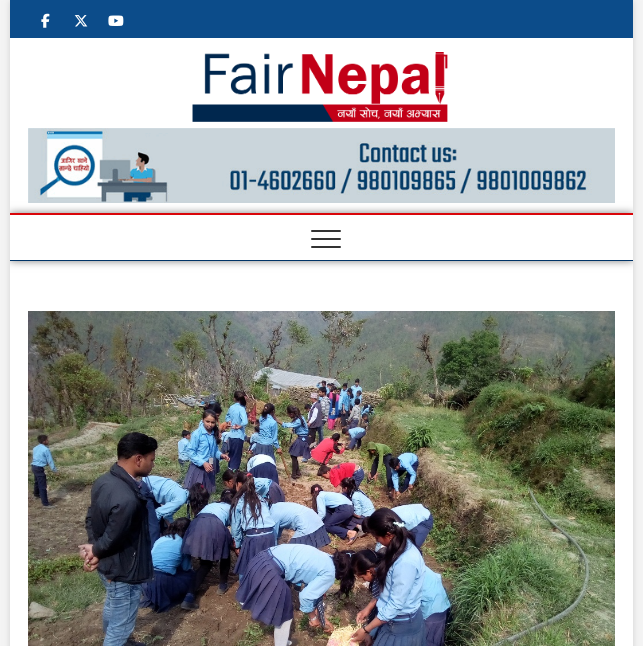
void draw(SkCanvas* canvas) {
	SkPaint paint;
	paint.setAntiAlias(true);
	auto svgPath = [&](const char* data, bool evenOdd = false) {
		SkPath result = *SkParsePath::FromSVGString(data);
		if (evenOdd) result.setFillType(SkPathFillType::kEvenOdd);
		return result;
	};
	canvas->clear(0xfff4f4f4);
	paint.setColor(0x26000000);
	paint.setMaskFilter(SkMaskFilter::MakeBlur(kNormal_SkBlurStyle, 3));
	canvas->drawRect(SkRect::MakeXYWH(10, 1, 623, 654), paint);
	paint.setMaskFilter(nullptr);
	paint.setColor(0xffffffff);
	canvas->drawRect(SkRect::MakeXYWH(10, 38, 623, 608), paint);
	paint.setColor(0xff0c4c8a);
	canvas->drawRect(SkRect::MakeXYWH(10, 0, 623, 38), paint);
	canvas->drawImageRect(SkImages::DeferredFromEncodedData(SkData::MakeFromFileName("img1.png")), SkRect::MakeXYWH(41, 13, 9, 15), SkSamplingOptions());
	canvas->drawImageRect(SkImages::DeferredFromEncodedData(SkData::MakeFromFileName("img2.png")), SkRect::MakeXYWH(74, 15, 14, 12), SkSamplingOptions());
	canvas->drawImageRect(SkImages::DeferredFromEncodedData(SkData::MakeFromFileName("img3.png")), SkRect::MakeXYWH(108, 15, 16, 11), SkSamplingOptions());
	canvas->drawImageRect(SkImages::DeferredFromEncodedData(SkData::MakeFromFileName("img4.png")), SkRect::MakeXYWH(192, 52, 256, 70), SkSamplingOptions());
	canvas->drawImageRect(SkImages::DeferredFromEncodedData(SkData::MakeFromFileName("img5.png")), SkRect::MakeXYWH(28, 128, 587, 75), SkSamplingOptions());
	canvas->save();
	canvas->clipRect(SkRect::MakeXYWH(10, 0, 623, 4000));
	canvas->clipPath(svgPath("M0 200H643V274H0ZM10 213H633V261H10Z", true), true);
	paint.setColor(0x80000000);
	paint.setMaskFilter(SkMaskFilter::MakeBlur(kNormal_SkBlurStyle, 4));
	canvas->drawRect(SkRect::MakeXYWH(10, 213, 623, 48), paint);
	paint.setMaskFilter(nullptr);
	canvas->restore();
	paint.setColor(0xffd90509);
	canvas->drawRect(SkRect::MakeXYWH(10, 213, 623, 2), paint);
	paint.setColor(0xff003366);
	canvas->drawRect(SkRect::MakeXYWH(10, 260, 623, 1), paint);
	paint.setColor(0xff333333);
	canvas->drawRoundRect(SkRect::MakeXYWH(311, 238, 30, 2), 1, 1, paint);
	canvas->drawRoundRect(SkRect::MakeXYWH(311, 230, 30, 2), 1, 1, paint);
	canvas->drawRoundRect(SkRect::MakeXYWH(311, 246, 30, 2), 1, 1, paint);
	canvas->drawImageRect(SkImages::DeferredFromEncodedData(SkData::MakeFromFileName("img6.png")), SkRect::MakeXYWH(28, 311, 587, 335), SkSamplingOptions());
}
